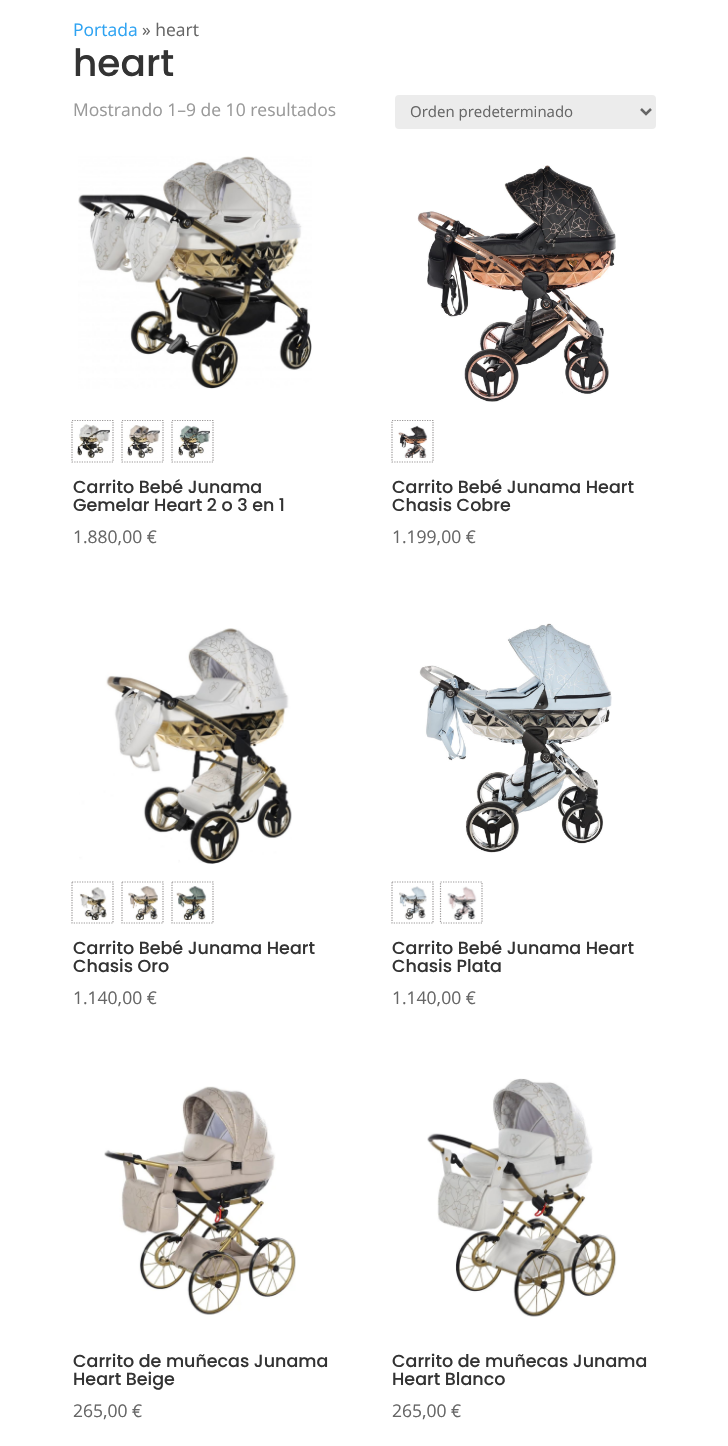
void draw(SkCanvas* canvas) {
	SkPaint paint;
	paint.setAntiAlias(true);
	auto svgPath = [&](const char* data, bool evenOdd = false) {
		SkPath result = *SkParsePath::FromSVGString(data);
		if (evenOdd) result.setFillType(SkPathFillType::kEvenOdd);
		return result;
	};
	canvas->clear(0xffffffff);
	SkFont f1(fontMgr->matchFamilyStyle("Open Sans", SkFontStyle::Normal()), 17.5);
	f1.setSubpixel(true);
	paint.setColor(0xff2ea3f2);
	canvas->drawString("Portada", 73, 36, f1, paint);
	paint.setColor(0xff666666);
	canvas->drawString("» heart", 142, 36, f1, paint);
	SkFont f2(fontMgr->matchFamilyStyle("Poppins", SkFontStyle(500, SkFontStyle::kNormal_Width, SkFontStyle::kUpright_Slant)), 37.5);
	f2.setSubpixel(true);
	paint.setColor(0xff333333);
	canvas->drawString("heart", 73, 76, f2, paint);
	paint.setColor(0xff999999);
	canvas->drawString("Mostrando 1–9 de 10 resultados", 73, 116, f1, paint);
	paint.setColor(0xffececec);
	canvas->drawRoundRect(SkRect::MakeXYWH(395, 95, 261, 34), 4, 4, paint);
	paint.setStroke(true);
	paint.setStrokeWidth(2.5);
	paint.setColor(0xff666666);
	canvas->drawPath(svgPath("M641 109L646 114L651 109"), paint);
	SkFont f3(fontMgr->matchFamilyStyle("Open Sans", SkFontStyle::Normal()), 15);
	f3.setSubpixel(true);
	paint.setStroke(false);
	canvas->drawString("Orden predeterminado", 410, 117, f3, paint);
	canvas->drawImageRect(SkImages::DeferredFromEncodedData(SkData::MakeFromFileName("img1.png")), SkRect::MakeXYWH(78, 156, 234, 233), SkSamplingOptions());
	canvas->drawImageRect(SkImages::DeferredFromEncodedData(SkData::MakeFromFileName("img2.png")), SkRect::MakeXYWH(77, 424, 33, 34), SkSamplingOptions());
	paint.setStroke(true);
	paint.setStrokeWidth(1.2);
	paint.setColor(0xff9c9999);
	paint.setPathEffect(SkDashPathEffect::Make({{1.25f, 1.25f}}, 0));
	canvas->drawPath(svgPath("M72 420.5H113V462H72Z"), paint);
	paint.setPathEffect(nullptr);
	canvas->drawImageRect(SkImages::DeferredFromEncodedData(SkData::MakeFromFileName("img3.png")), SkRect::MakeXYWH(127, 425, 33, 33), SkSamplingOptions());
	paint.setPathEffect(SkDashPathEffect::Make({{1.25f, 1.25f}}, 0));
	canvas->drawPath(svgPath("M122 420.5H163V462H122Z"), paint);
	paint.setPathEffect(nullptr);
	canvas->drawImageRect(SkImages::DeferredFromEncodedData(SkData::MakeFromFileName("img4.png")), SkRect::MakeXYWH(178, 425, 32, 33), SkSamplingOptions());
	paint.setPathEffect(SkDashPathEffect::Make({{1.25f, 1.25f}}, 0));
	canvas->drawPath(svgPath("M172 420.5H213V462H172Z"), paint);
	paint.setPathEffect(nullptr);
	SkFont f4(fontMgr->matchFamilyStyle("Poppins", SkFontStyle(500, SkFontStyle::kNormal_Width, SkFontStyle::kUpright_Slant)), 17.5);
	f4.setSubpixel(true);
	paint.setStroke(false);
	paint.setColor(0xff333333);
	canvas->drawString("Carrito Bebé Junama", 73, 493, f4, paint);
	canvas->drawString("Gemelar Heart 2 o 3 en 1", 73, 511, f4, paint);
	paint.setColor(0xff666666);
	canvas->drawString("1.880,00 €", 73, 543, f1, paint);
	canvas->drawImageRect(SkImages::DeferredFromEncodedData(SkData::MakeFromFileName("img5.png")), SkRect::MakeXYWH(417, 165, 199, 237), SkSamplingOptions());
	canvas->drawImageRect(SkImages::DeferredFromEncodedData(SkData::MakeFromFileName("img6.png")), SkRect::MakeXYWH(398, 425, 30, 33), SkSamplingOptions());
	paint.setStroke(true);
	paint.setColor(0xff9c9999);
	paint.setPathEffect(SkDashPathEffect::Make({{1.25f, 1.25f}}, 0));
	canvas->drawPath(svgPath("M392 420.5H433V462H392Z"), paint);
	paint.setPathEffect(nullptr);
	paint.setStroke(false);
	paint.setColor(0xff333333);
	canvas->drawString("Carrito Bebé Junama Heart", 392, 493, f4, paint);
	canvas->drawString("Chasis Cobre", 392, 511, f4, paint);
	paint.setColor(0xff666666);
	canvas->drawString("1.199,00 €", 392, 543, f1, paint);
	canvas->drawImageRect(SkImages::DeferredFromEncodedData(SkData::MakeFromFileName("img7.png")), SkRect::MakeXYWH(79, 628, 213, 236), SkSamplingOptions());
	canvas->drawImageRect(SkImages::DeferredFromEncodedData(SkData::MakeFromFileName("img8.png")), SkRect::MakeXYWH(79, 887, 28, 33), SkSamplingOptions());
	paint.setStroke(true);
	paint.setColor(0xff9c9999);
	paint.setPathEffect(SkDashPathEffect::Make({{1.25f, 1.25f}}, 0));
	canvas->drawPath(svgPath("M72 882H113V923H72Z"), paint);
	paint.setPathEffect(nullptr);
	canvas->drawImageRect(SkImages::DeferredFromEncodedData(SkData::MakeFromFileName("img9.png")), SkRect::MakeXYWH(128, 886, 30, 34), SkSamplingOptions());
	paint.setPathEffect(SkDashPathEffect::Make({{1.25f, 1.25f}}, 0));
	canvas->drawPath(svgPath("M122 882H163V923H122Z"), paint);
	paint.setPathEffect(nullptr);
	canvas->drawImageRect(SkImages::DeferredFromEncodedData(SkData::MakeFromFileName("img10.png")), SkRect::MakeXYWH(176, 886, 31, 34), SkSamplingOptions());
	paint.setPathEffect(SkDashPathEffect::Make({{1.25f, 1.25f}}, 0));
	canvas->drawPath(svgPath("M172 882H213V923H172Z"), paint);
	paint.setPathEffect(nullptr);
	paint.setStroke(false);
	paint.setColor(0xff333333);
	canvas->drawString("Carrito Bebé Junama Heart", 73, 954, f4, paint);
	canvas->drawString("Chasis Oro", 73, 972, f4, paint);
	paint.setColor(0xff666666);
	canvas->drawString("1.140,00 €", 73, 1004, f1, paint);
	canvas->drawImageRect(SkImages::DeferredFromEncodedData(SkData::MakeFromFileName("img11.png")), SkRect::MakeXYWH(419, 623, 193, 230), SkSamplingOptions());
	canvas->drawImageRect(SkImages::DeferredFromEncodedData(SkData::MakeFromFileName("img12.png")), SkRect::MakeXYWH(399, 886, 28, 34), SkSamplingOptions());
	paint.setStroke(true);
	paint.setColor(0xff9c9999);
	paint.setPathEffect(SkDashPathEffect::Make({{1.25f, 1.25f}}, 0));
	canvas->drawPath(svgPath("M392 882H433V923H392Z"), paint);
	paint.setPathEffect(nullptr);
	canvas->drawImageRect(SkImages::DeferredFromEncodedData(SkData::MakeFromFileName("img13.png")), SkRect::MakeXYWH(447, 886, 30, 34), SkSamplingOptions());
	paint.setPathEffect(SkDashPathEffect::Make({{1.25f, 1.25f}}, 0));
	canvas->drawPath(svgPath("M440.5 882H482V923H440.5Z"), paint);
	paint.setPathEffect(nullptr);
	paint.setStroke(false);
	paint.setColor(0xff333333);
	canvas->drawString("Carrito Bebé Junama Heart", 392, 954, f4, paint);
	canvas->drawString("Chasis Plata", 392, 972, f4, paint);
	paint.setColor(0xff666666);
	canvas->drawString("1.140,00 €", 392, 1004, f1, paint);
	canvas->drawImageRect(SkImages::DeferredFromEncodedData(SkData::MakeFromFileName("img14.png")), SkRect::MakeXYWH(104, 1086, 192, 229), SkSamplingOptions());
	paint.setColor(0xff333333);
	canvas->drawString("Carrito de muñecas Junama", 73, 1367, f4, paint);
	canvas->drawString("Heart Beige", 73, 1385, f4, paint);
	paint.setColor(0xff666666);
	canvas->drawString("265,00 €", 73, 1417, f1, paint);
	canvas->drawImageRect(SkImages::DeferredFromEncodedData(SkData::MakeFromFileName("img15.png")), SkRect::MakeXYWH(427, 1078, 190, 239), SkSamplingOptions());
	paint.setColor(0xff333333);
	canvas->drawString("Carrito de muñecas Junama", 392, 1367, f4, paint);
	canvas->drawString("Heart Blanco", 392, 1385, f4, paint);
	paint.setColor(0xff666666);
	canvas->drawString("265,00 €", 392, 1417, f1, paint);
}
